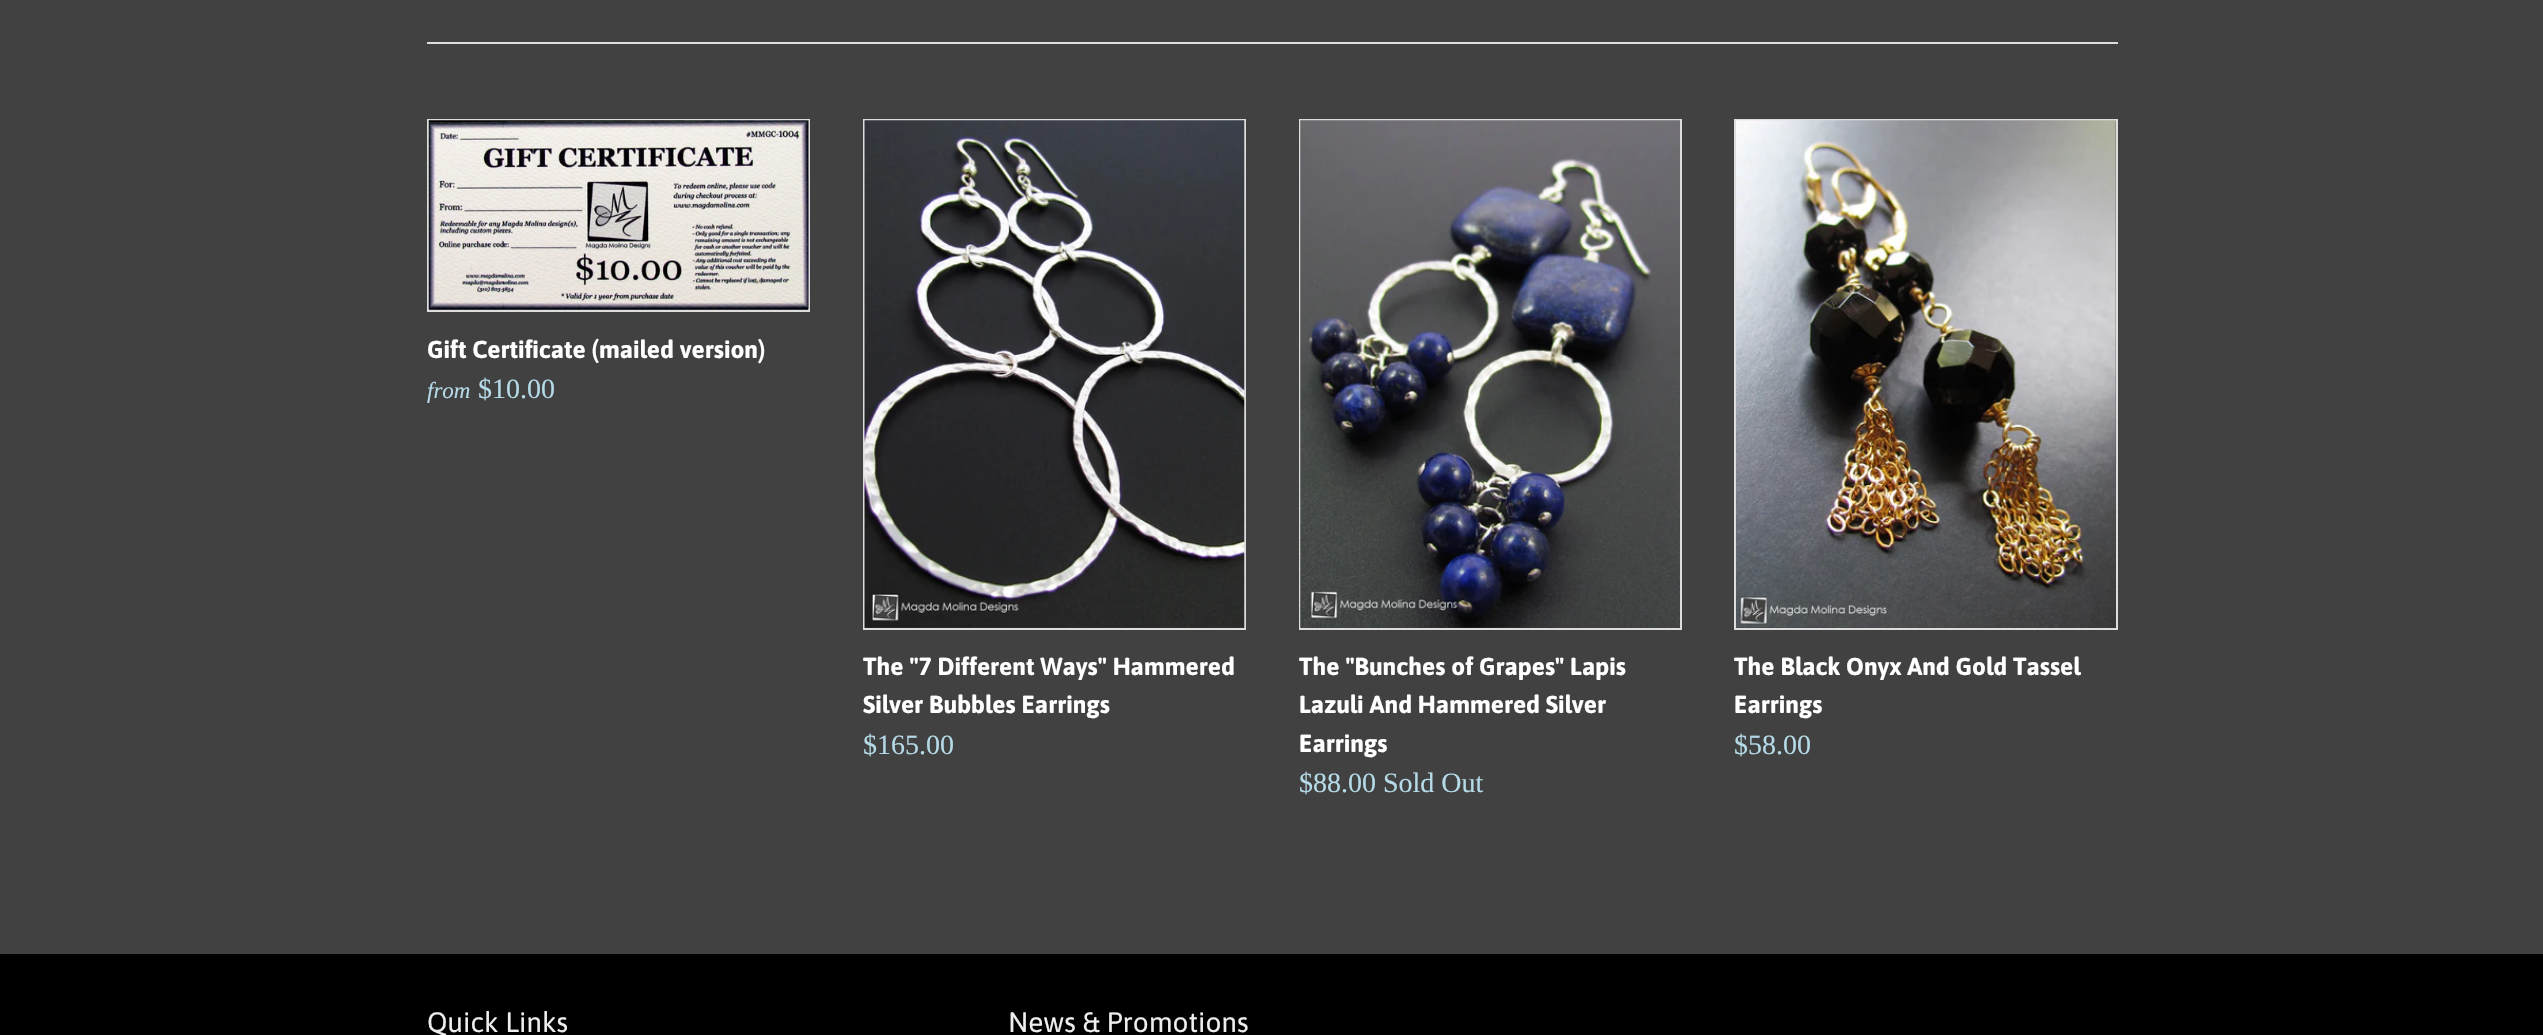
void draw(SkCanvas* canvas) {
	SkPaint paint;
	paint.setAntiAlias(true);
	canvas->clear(0xff424141);
	paint.setColor(0xffdddddd);
	canvas->drawRect(SkRect::MakeXYWH(427, 42, 1691, 2), paint);
	paint.setStroke(true);
	paint.setStrokeWidth(2);
	canvas->drawRect(SkRect::MakeXYWH(428, 120, 381, 191), paint);
	canvas->drawImageRect(SkImages::DeferredFromEncodedData(SkData::MakeFromFileName("img1.png")), SkRect::MakeXYWH(428, 120, 381, 190), SkSamplingOptions());
	SkFont f1(fontMgr->matchFamilyStyle("Asap", SkFontStyle::Bold()), 24.5);
	f1.setSubpixel(true);
	paint.setStroke(false);
	paint.setColor(0xffffffff);
	canvas->drawString("Gift Certificate (mailed version)", 427, 358, f1, paint);
	SkFont f2(fontMgr->matchFamilyStyle("Liberation Serif", SkFontStyle::Italic()), 23);
	f2.setSubpixel(true);
	paint.setColor(0xffb5dbe8);
	canvas->drawString("from", 427, 398, f2, paint);
	SkFont f3(fontMgr->matchFamilyStyle("Liberation Serif", SkFontStyle::Normal()), 28);
	f3.setSubpixel(true);
	canvas->drawString("$10.00", 478, 398, f3, paint);
	paint.setStroke(true);
	paint.setColor(0xffdddddd);
	canvas->drawRect(SkRect::MakeXYWH(864, 120, 381, 509), paint);
	canvas->drawImageRect(SkImages::DeferredFromEncodedData(SkData::MakeFromFileName("img2.png")), SkRect::MakeXYWH(864, 120, 381, 508), SkSamplingOptions());
	paint.setStroke(false);
	paint.setColor(0xffffffff);
	canvas->drawString("The \"7 Different Ways\" Hammered", 863, 675, f1, paint);
	canvas->drawString("Silver Bubbles Earrings", 863, 713, f1, paint);
	paint.setColor(0xffb5dbe8);
	canvas->drawString("$165.00", 863, 754, f3, paint);
	paint.setStroke(true);
	paint.setColor(0xffdddddd);
	canvas->drawRect(SkRect::MakeXYWH(1300, 120, 381, 509), paint);
	canvas->drawImageRect(SkImages::DeferredFromEncodedData(SkData::MakeFromFileName("img3.png")), SkRect::MakeXYWH(1300, 120, 380, 508), SkSamplingOptions());
	paint.setStroke(false);
	paint.setColor(0xffffffff);
	canvas->drawString("The \"Bunches of Grapes\" Lapis", 1299, 675, f1, paint);
	canvas->drawString("Lazuli And Hammered Silver", 1299, 713, f1, paint);
	canvas->drawString("Earrings", 1299, 752, f1, paint);
	paint.setColor(0xffb5dbe8);
	canvas->drawString("$88.00 Sold Out", 1299, 792, f3, paint);
	paint.setStroke(true);
	paint.setColor(0xffdddddd);
	canvas->drawRect(SkRect::MakeXYWH(1735, 120, 382, 509), paint);
	canvas->drawImageRect(SkImages::DeferredFromEncodedData(SkData::MakeFromFileName("img4.png")), SkRect::MakeXYWH(1736, 120, 380, 508), SkSamplingOptions());
	paint.setStroke(false);
	paint.setColor(0xffffffff);
	canvas->drawString("The Black Onyx And Gold Tassel", 1734, 675, f1, paint);
	canvas->drawString("Earrings", 1734, 713, f1, paint);
	paint.setColor(0xffb5dbe8);
	canvas->drawString("$58.00", 1734, 754, f3, paint);
	paint.setColor(0xff000000);
	canvas->drawRect(SkRect::MakeXYWH(0, 954, 2543, 81), paint);
	SkFont f4(fontMgr->matchFamilyStyle("Asap", SkFontStyle::Normal()), 28);
	f4.setSubpixel(true);
	paint.setColor(0xffeeeeee);
	canvas->drawString("Quick Links", 427, 1032, f4, paint);
	canvas->drawString("News & Promotions", 1008, 1032, f4, paint);
}
